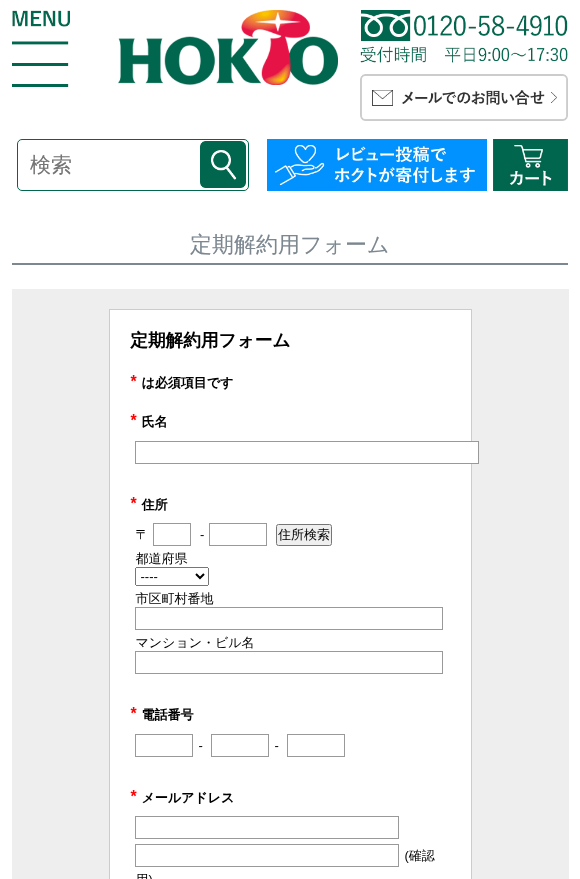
void draw(SkCanvas* canvas) {
	SkPaint paint;
	paint.setAntiAlias(true);
	canvas->clear(0xffffffff);
	canvas->drawImageRect(SkImages::DeferredFromEncodedData(SkData::MakeFromFileName("img1.png")), SkRect::MakeXYWH(12, 10, 58, 77), SkSamplingOptions());
	canvas->drawImageRect(SkImages::DeferredFromEncodedData(SkData::MakeFromFileName("img2.png")), SkRect::MakeXYWH(118, 10, 220, 75), SkSamplingOptions());
	canvas->drawImageRect(SkImages::DeferredFromEncodedData(SkData::MakeFromFileName("img3.png")), SkRect::MakeXYWH(360, 10, 208, 53), SkSamplingOptions());
	canvas->drawImageRect(SkImages::DeferredFromEncodedData(SkData::MakeFromFileName("img4.png")), SkRect::MakeXYWH(360, 74, 208, 47), SkSamplingOptions());
	paint.setStroke(true);
	paint.setStrokeWidth(1);
	paint.setColor(0xff00664d);
	canvas->drawRoundRect(SkRect::MakeXYWH(17.5, 139.5, 231, 51), 4.5, 4.5, paint);
	SkFont f1(fontMgr->matchFamilyStyle("WenQuanYi Zen Hei", SkFontStyle(500, SkFontStyle::kNormal_Width, SkFontStyle::kUpright_Slant)), 21);
	f1.setSubpixel(true);
	paint.setStroke(false);
	paint.setColor(0xff757575);
	canvas->drawString("検索", 30, 172, f1, paint);
	canvas->drawImageRect(SkImages::DeferredFromEncodedData(SkData::MakeFromFileName("img5.png")), SkRect::MakeXYWH(200, 141, 46, 47), SkSamplingOptions());
	canvas->drawImageRect(SkImages::DeferredFromEncodedData(SkData::MakeFromFileName("img6.png")), SkRect::MakeXYWH(267, 139, 220, 52), SkSamplingOptions());
	canvas->drawImageRect(SkImages::DeferredFromEncodedData(SkData::MakeFromFileName("img7.png")), SkRect::MakeXYWH(493, 139, 75, 52), SkSamplingOptions());
	paint.setColor(0xff7c8790);
	canvas->drawRect(SkRect::MakeXYWH(12, 263, 556, 2), paint);
	SkFont f2(fontMgr->matchFamilyStyle("WenQuanYi Zen Hei", SkFontStyle(500, SkFontStyle::kNormal_Width, SkFontStyle::kUpright_Slant)), 22);
	f2.setSubpixel(true);
	canvas->drawString("定期解約用フォーム", 190, 252, f2, paint);
	canvas->drawImageRect(SkImages::DeferredFromEncodedData(SkData::MakeFromFileName("img8.png")), SkRect::MakeXYWH(12, 289, 557, 590), SkSamplingOptions());
}
